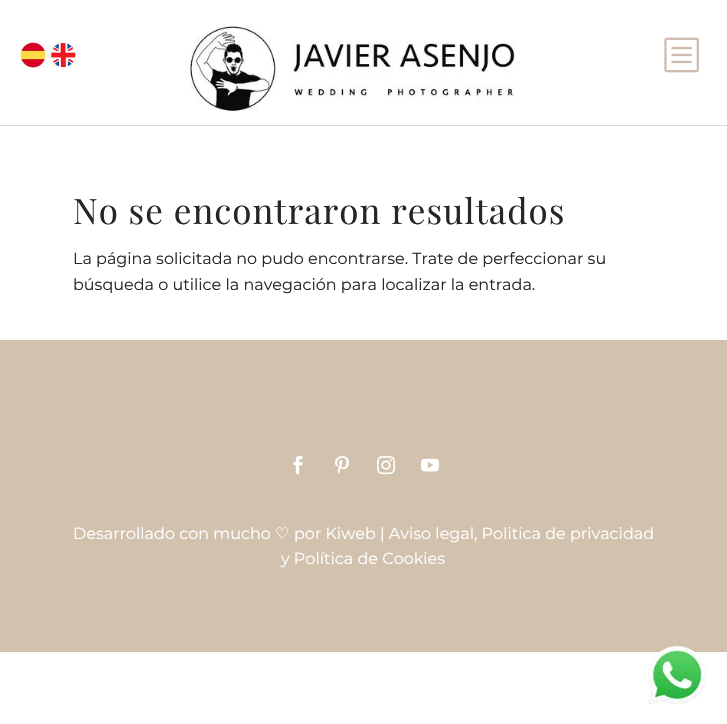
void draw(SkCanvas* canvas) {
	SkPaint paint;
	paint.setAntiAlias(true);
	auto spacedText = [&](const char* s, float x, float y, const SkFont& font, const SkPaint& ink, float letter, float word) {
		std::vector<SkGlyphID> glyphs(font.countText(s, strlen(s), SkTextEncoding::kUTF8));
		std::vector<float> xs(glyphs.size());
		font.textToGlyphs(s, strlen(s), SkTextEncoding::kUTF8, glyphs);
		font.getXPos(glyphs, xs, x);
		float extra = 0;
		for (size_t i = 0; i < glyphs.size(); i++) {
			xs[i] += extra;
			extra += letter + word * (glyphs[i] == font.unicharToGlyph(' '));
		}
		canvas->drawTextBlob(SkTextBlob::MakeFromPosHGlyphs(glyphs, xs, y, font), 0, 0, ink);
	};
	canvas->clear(0xffffffff);
	paint.setColor(0xffd8d8d8);
	canvas->drawRect(SkRect::MakeXYWH(0, 125, 727, 1), paint);
	canvas->drawImageRect(SkImages::DeferredFromEncodedData(SkData::MakeFromFileName("img1.png")), SkRect::MakeXYWH(20, 42, 56, 27), SkSamplingOptions());
	canvas->drawImageRect(SkImages::DeferredFromEncodedData(SkData::MakeFromFileName("img2.png")), SkRect::MakeXYWH(190, 23, 325, 89), SkSamplingOptions());
	canvas->drawImageRect(SkImages::DeferredFromEncodedData(SkData::MakeFromFileName("img3.png")), SkRect::MakeXYWH(664, 37, 35, 36), SkSamplingOptions());
	SkFont f1(fontMgr->matchFamilyStyle("Playfair Display", SkFontStyle::Normal()), 35);
	f1.setSubpixel(true);
	paint.setColor(0xff262626);
	spacedText("No se encontraron resultados", 73, 224, f1, paint, 1, 0);
	SkFont f2(fontMgr->matchFamilyStyle("Montserrat", SkFontStyle::Normal()), 16);
	f2.setSubpixel(true);
	canvas->drawString("La página solicitada no pudo encontrarse. Trate de perfeccionar su", 73, 264, f2, paint);
	canvas->drawString("búsqueda o utilice la navegación para localizar la entrada.", 73, 290, f2, paint);
	paint.setColor(0xffd1c1ad);
	canvas->drawRect(SkRect::MakeXYWH(0, 340, 727, 312), paint);
	canvas->drawImageRect(SkImages::DeferredFromEncodedData(SkData::MakeFromFileName("img4.png")), SkRect::MakeXYWH(293, 456, 10, 19), SkSamplingOptions());
	canvas->drawImageRect(SkImages::DeferredFromEncodedData(SkData::MakeFromFileName("img5.png")), SkRect::MakeXYWH(335, 456, 14, 18), SkSamplingOptions());
	canvas->drawImageRect(SkImages::DeferredFromEncodedData(SkData::MakeFromFileName("img6.png")), SkRect::MakeXYWH(377, 456, 18, 19), SkSamplingOptions());
	canvas->drawImageRect(SkImages::DeferredFromEncodedData(SkData::MakeFromFileName("img7.png")), SkRect::MakeXYWH(421, 458, 18, 14), SkSamplingOptions());
	paint.setColor(0xffffffff);
	canvas->drawString("Desarrollado con mucho", 73, 539, f2, paint);
	SkFont f3(fontMgr->matchFamilyStyle("DejaVu Sans", SkFontStyle::Normal()), 16);
	f3.setSubpixel(true);
	canvas->drawString("♡", 275, 539, f3, paint);
	canvas->drawString("por Kiweb | Aviso legal, Politica de privacidad", 294, 539, f2, paint);
	canvas->drawString("y Política de Cookies", 281, 564, f2, paint);
	canvas->drawImageRect(SkImages::DeferredFromEncodedData(SkData::MakeFromFileName("img8.png")), SkRect::MakeXYWH(648, 645, 58, 59), SkSamplingOptions());
}
